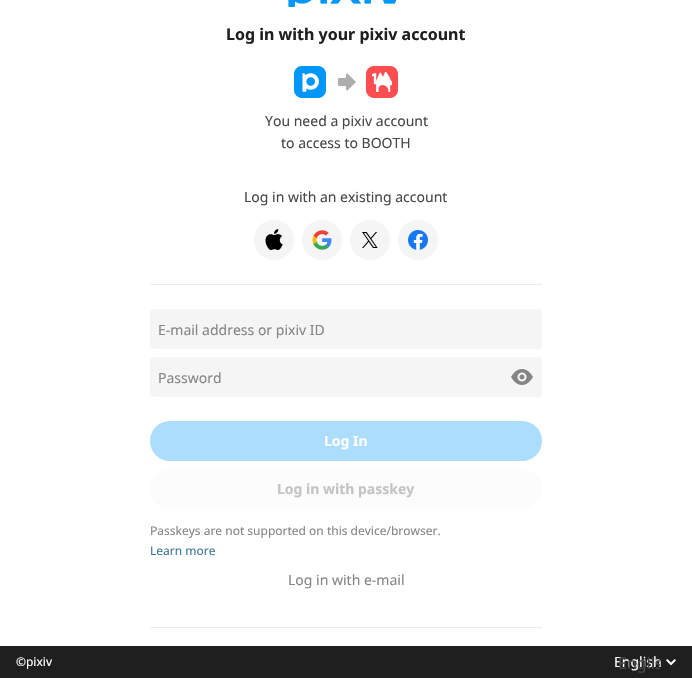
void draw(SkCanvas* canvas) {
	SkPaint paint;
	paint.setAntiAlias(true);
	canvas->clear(0xffffffff);
	canvas->drawImageRect(SkImages::DeferredFromEncodedData(SkData::MakeFromFileName("img1.png")), SkRect::MakeXYWH(288, 0, 109, 7), SkSamplingOptions());
	SkFont f1(fontMgr->matchFamilyStyle("Noto Sans", SkFontStyle::Bold()), 16);
	f1.setSubpixel(true);
	paint.setColor(0xff1f1f1f);
	canvas->drawString("Log in with your pixiv account", 226, 40, f1, paint);
	canvas->drawImageRect(SkImages::DeferredFromEncodedData(SkData::MakeFromFileName("img2.png")), SkRect::MakeXYWH(294, 66, 32, 32), SkSamplingOptions());
	canvas->drawImageRect(SkImages::DeferredFromEncodedData(SkData::MakeFromFileName("img3.png")), SkRect::MakeXYWH(338, 73, 18, 18), SkSamplingOptions());
	canvas->drawImageRect(SkImages::DeferredFromEncodedData(SkData::MakeFromFileName("img4.png")), SkRect::MakeXYWH(366, 66, 32, 32), SkSamplingOptions());
	SkFont f2(fontMgr->matchFamilyStyle("Noto Sans", SkFontStyle::Normal()), 14);
	f2.setSubpixel(true);
	paint.setColor(0xff474747);
	canvas->drawString("You need a pixiv account", 265, 126, f2, paint);
	canvas->drawString("to access to BOOTH", 281, 148, f2, paint);
	canvas->drawString("Log in with an existing account", 244, 202, f2, paint);
	paint.setColor(0xfff5f5f5);
	canvas->drawCircle(274, 240, 20, paint);
	canvas->drawImageRect(SkImages::DeferredFromEncodedData(SkData::MakeFromFileName("img5.png")), SkRect::MakeXYWH(265, 229, 18, 21), SkSamplingOptions());
	canvas->drawCircle(322, 240, 20, paint);
	canvas->drawImageRect(SkImages::DeferredFromEncodedData(SkData::MakeFromFileName("img6.png")), SkRect::MakeXYWH(312, 230, 20, 20), SkSamplingOptions());
	canvas->drawCircle(370, 240, 20, paint);
	canvas->drawImageRect(SkImages::DeferredFromEncodedData(SkData::MakeFromFileName("img7.png")), SkRect::MakeXYWH(362, 232, 16, 16), SkSamplingOptions());
	canvas->drawCircle(418, 240, 20, paint);
	canvas->drawImageRect(SkImages::DeferredFromEncodedData(SkData::MakeFromFileName("img8.png")), SkRect::MakeXYWH(408, 230, 20, 20), SkSamplingOptions());
	paint.setColor(0xffebebeb);
	canvas->drawRect(SkRect::MakeXYWH(150, 284, 392, 1), paint);
	paint.setColor(0xfff5f5f5);
	canvas->drawRoundRect(SkRect::MakeXYWH(150, 309, 392, 40), 4, 4, paint);
	paint.setColor(0xff858585);
	canvas->drawString("E-mail address or pixiv ID", 158, 335, f2, paint);
	paint.setColor(0xfff5f5f5);
	canvas->drawRoundRect(SkRect::MakeXYWH(150, 357, 392, 40), 4, 4, paint);
	paint.setColor(0xff858585);
	canvas->drawString("Password", 158, 383, f2, paint);
	canvas->drawImageRect(SkImages::DeferredFromEncodedData(SkData::MakeFromFileName("img9.png")), SkRect::MakeXYWH(511, 369, 22, 16), SkSamplingOptions());
	paint.setColor(0xffadddfd);
	canvas->drawRoundRect(SkRect::MakeXYWH(150, 421, 392, 40), 20, 20, paint);
	SkFont f3(fontMgr->matchFamilyStyle("Noto Sans", SkFontStyle::Bold()), 14);
	f3.setSubpixel(true);
	paint.setColor(0xffffffff);
	canvas->drawString("Log In", 324, 446, f3, paint);
	paint.setColor(0xfffcfcfc);
	canvas->drawRoundRect(SkRect::MakeXYWH(150, 469, 392, 40), 20, 20, paint);
	paint.setColor(0xffc4c4c4);
	canvas->drawString("Log in with passkey", 277, 494, f3, paint);
	SkFont f4(fontMgr->matchFamilyStyle("Noto Sans", SkFontStyle::Normal()), 12);
	f4.setSubpixel(true);
	paint.setColor(0xff858585);
	canvas->drawString("Passkeys are not supported on this device/browser.", 150, 535, f4, paint);
	paint.setColor(0xff3d7699);
	canvas->drawString("Learn more", 150, 555, f4, paint);
	paint.setColor(0xff858585);
	canvas->drawString("Log in with e-mail", 288, 585, f2, paint);
	paint.setColor(0xffebebeb);
	canvas->drawRect(SkRect::MakeXYWH(150, 627, 392, 1), paint);
	paint.setColor(0xe0000000);
	canvas->drawRect(SkRect::MakeXYWH(0, 646, 692, 32), paint);
	paint.setColor(0xffffffff);
	canvas->drawString("©pixiv", 16, 666, f4, paint);
	canvas->drawString("English", 614, 667, f2, paint);
	canvas->drawImageRect(SkImages::DeferredFromEncodedData(SkData::MakeFromFileName("img10.png")), SkRect::MakeXYWH(666, 659, 10, 7), SkSamplingOptions());
	canvas->save();
	canvas->clipRect(SkRect::MakeXYWH(618, 651, 42, 24));
	SkFont f5(fontMgr->matchFamilyStyle("Noto Sans", SkFontStyle::Normal()), 16);
	f5.setSubpixel(true);
	paint.setColor(0xff474747);
	canvas->drawString("Englis", 618, 669, f5, paint);
	canvas->restore();
}
